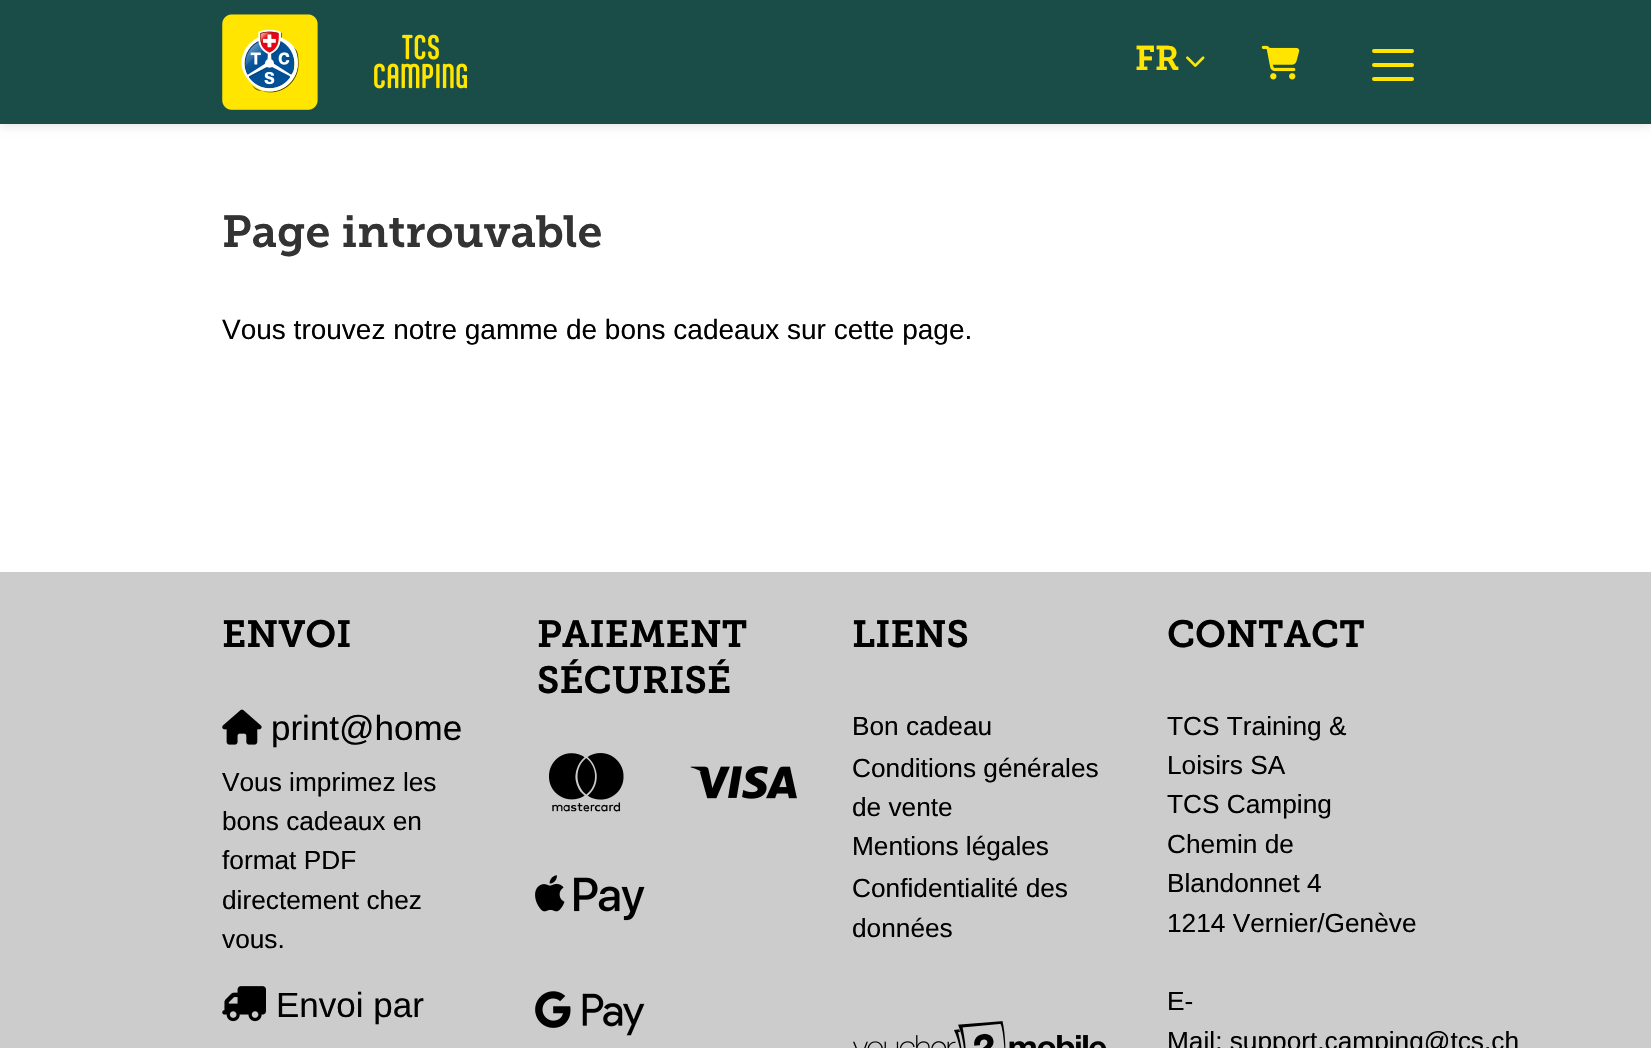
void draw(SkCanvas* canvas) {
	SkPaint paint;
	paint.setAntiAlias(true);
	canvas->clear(0xffffffff);
	paint.setColor(0x1a000000);
	paint.setMaskFilter(SkMaskFilter::MakeBlur(kNormal_SkBlurStyle, 4.5));
	canvas->drawRect(SkRect::MakeXYWH(0, 2, 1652, 124), paint);
	paint.setMaskFilter(nullptr);
	paint.setColor(0xff1a4d48);
	canvas->drawRect(SkRect::MakeXYWH(0, 0, 1651, 124), paint);
	canvas->drawImageRect(SkImages::DeferredFromEncodedData(SkData::MakeFromFileName("img1.png")), SkRect::MakeXYWH(222, 14, 245, 96), SkSamplingOptions());
	SkFont f1(fontMgr->matchFamilyStyle("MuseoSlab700", SkFontStyle::Normal()), 34);
	f1.setSubpixel(true);
	paint.setColor(0xffffe500);
	canvas->drawString("FR", 1135, 70, f1, paint);
	canvas->drawImageRect(SkImages::DeferredFromEncodedData(SkData::MakeFromFileName("img2.png")), SkRect::MakeXYWH(1186, 56, 19, 11), SkSamplingOptions());
	canvas->drawImageRect(SkImages::DeferredFromEncodedData(SkData::MakeFromFileName("img3.png")), SkRect::MakeXYWH(1261, 45, 39, 35), SkSamplingOptions());
	canvas->drawRoundRect(SkRect::MakeXYWH(1372, 49, 42, 4), 2, 2, paint);
	canvas->drawRoundRect(SkRect::MakeXYWH(1372, 63, 42, 4), 2, 2, paint);
	canvas->drawRoundRect(SkRect::MakeXYWH(1372, 77, 42, 4), 2, 2, paint);
	SkFont f2(fontMgr->matchFamilyStyle("MuseoSlab700", SkFontStyle::Normal()), 44.75);
	f2.setSubpixel(true);
	paint.setColor(0xff333333);
	canvas->drawString("Page introuvable", 222, 247, f2, paint);
	SkFont f3(fontMgr->matchFamilyStyle("Liberation Sans", SkFontStyle::Normal()), 28);
	f3.setSubpixel(true);
	paint.setColor(0xff000000);
	canvas->drawString("Vous trouvez notre gamme de bons cadeaux sur cette page.", 222, 339, f3, paint);
	paint.setColor(0xffcccccc);
	canvas->drawRect(SkRect::MakeXYWH(0, 572, 1651, 476), paint);
	SkFont f4(fontMgr->matchFamilyStyle("MuseoSlab700", SkFontStyle::Normal()), 37.75);
	f4.setSubpixel(true);
	paint.setColor(0xff000000);
	canvas->drawString("ENVOI", 222, 647, f4, paint);
	canvas->drawImageRect(SkImages::DeferredFromEncodedData(SkData::MakeFromFileName("img4.png")), SkRect::MakeXYWH(222, 709, 40, 36), SkSamplingOptions());
	SkFont f5(fontMgr->matchFamilyStyle("Liberation Sans", SkFontStyle::Normal()), 35);
	f5.setSubpixel(true);
	canvas->drawString("print@home", 271, 740, f5, paint);
	SkFont f6(fontMgr->matchFamilyStyle("Liberation Sans", SkFontStyle::Normal()), 26.25);
	f6.setSubpixel(true);
	canvas->drawString("Vous imprimez les", 222, 791, f6, paint);
	canvas->drawString("bons cadeaux en", 222, 830, f6, paint);
	canvas->drawString("format PDF", 222, 869, f6, paint);
	canvas->drawString("directement chez", 222, 909, f6, paint);
	canvas->drawString("vous.", 222, 948, f6, paint);
	canvas->drawImageRect(SkImages::DeferredFromEncodedData(SkData::MakeFromFileName("img5.png")), SkRect::MakeXYWH(222, 986, 44, 36), SkSamplingOptions());
	canvas->drawString("Envoi par", 276, 1017, f5, paint);
	canvas->drawString("PAIEMENT", 537, 647, f4, paint);
	canvas->drawString("SÉCURISÉ", 537, 693, f4, paint);
	canvas->drawImageRect(SkImages::DeferredFromEncodedData(SkData::MakeFromFileName("img6.png")), SkRect::MakeXYWH(549, 753, 75, 59), SkSamplingOptions());
	canvas->drawImageRect(SkImages::DeferredFromEncodedData(SkData::MakeFromFileName("img7.png")), SkRect::MakeXYWH(690, 766, 107, 33), SkSamplingOptions());
	canvas->drawImageRect(SkImages::DeferredFromEncodedData(SkData::MakeFromFileName("img8.png")), SkRect::MakeXYWH(535, 875, 110, 46), SkSamplingOptions());
	canvas->drawImageRect(SkImages::DeferredFromEncodedData(SkData::MakeFromFileName("img9.png")), SkRect::MakeXYWH(535, 991, 110, 45), SkSamplingOptions());
	canvas->drawString("LIENS", 852, 647, f4, paint);
	canvas->drawString("Bon cadeau", 852, 735, f6, paint);
	canvas->drawString("Conditions générales", 852, 777, f6, paint);
	canvas->drawString("de vente", 852, 816, f6, paint);
	canvas->drawString("Mentions légales", 852, 855, f6, paint);
	canvas->drawString("Confidentialité des", 852, 897, f6, paint);
	canvas->drawString("données", 852, 937, f6, paint);
	canvas->drawImageRect(SkImages::DeferredFromEncodedData(SkData::MakeFromFileName("img10.png")), SkRect::MakeXYWH(853, 1021, 253, 27), SkSamplingOptions());
	canvas->drawString("CONTACT", 1167, 647, f4, paint);
	canvas->drawString("TCS Training &", 1167, 735, f6, paint);
	canvas->drawString("Loisirs SA", 1167, 774, f6, paint);
	canvas->drawString("TCS Camping", 1167, 813, f6, paint);
	canvas->drawString("Chemin de", 1167, 853, f6, paint);
	canvas->drawString("Blandonnet 4", 1167, 892, f6, paint);
	canvas->drawString("1214 Vernier/Genève", 1167, 932, f6, paint);
	canvas->drawString("E-", 1167, 1010, f6, paint);
	canvas->drawString("Mail: support.camping@tcs.ch", 1167, 1050, f6, paint);
}
